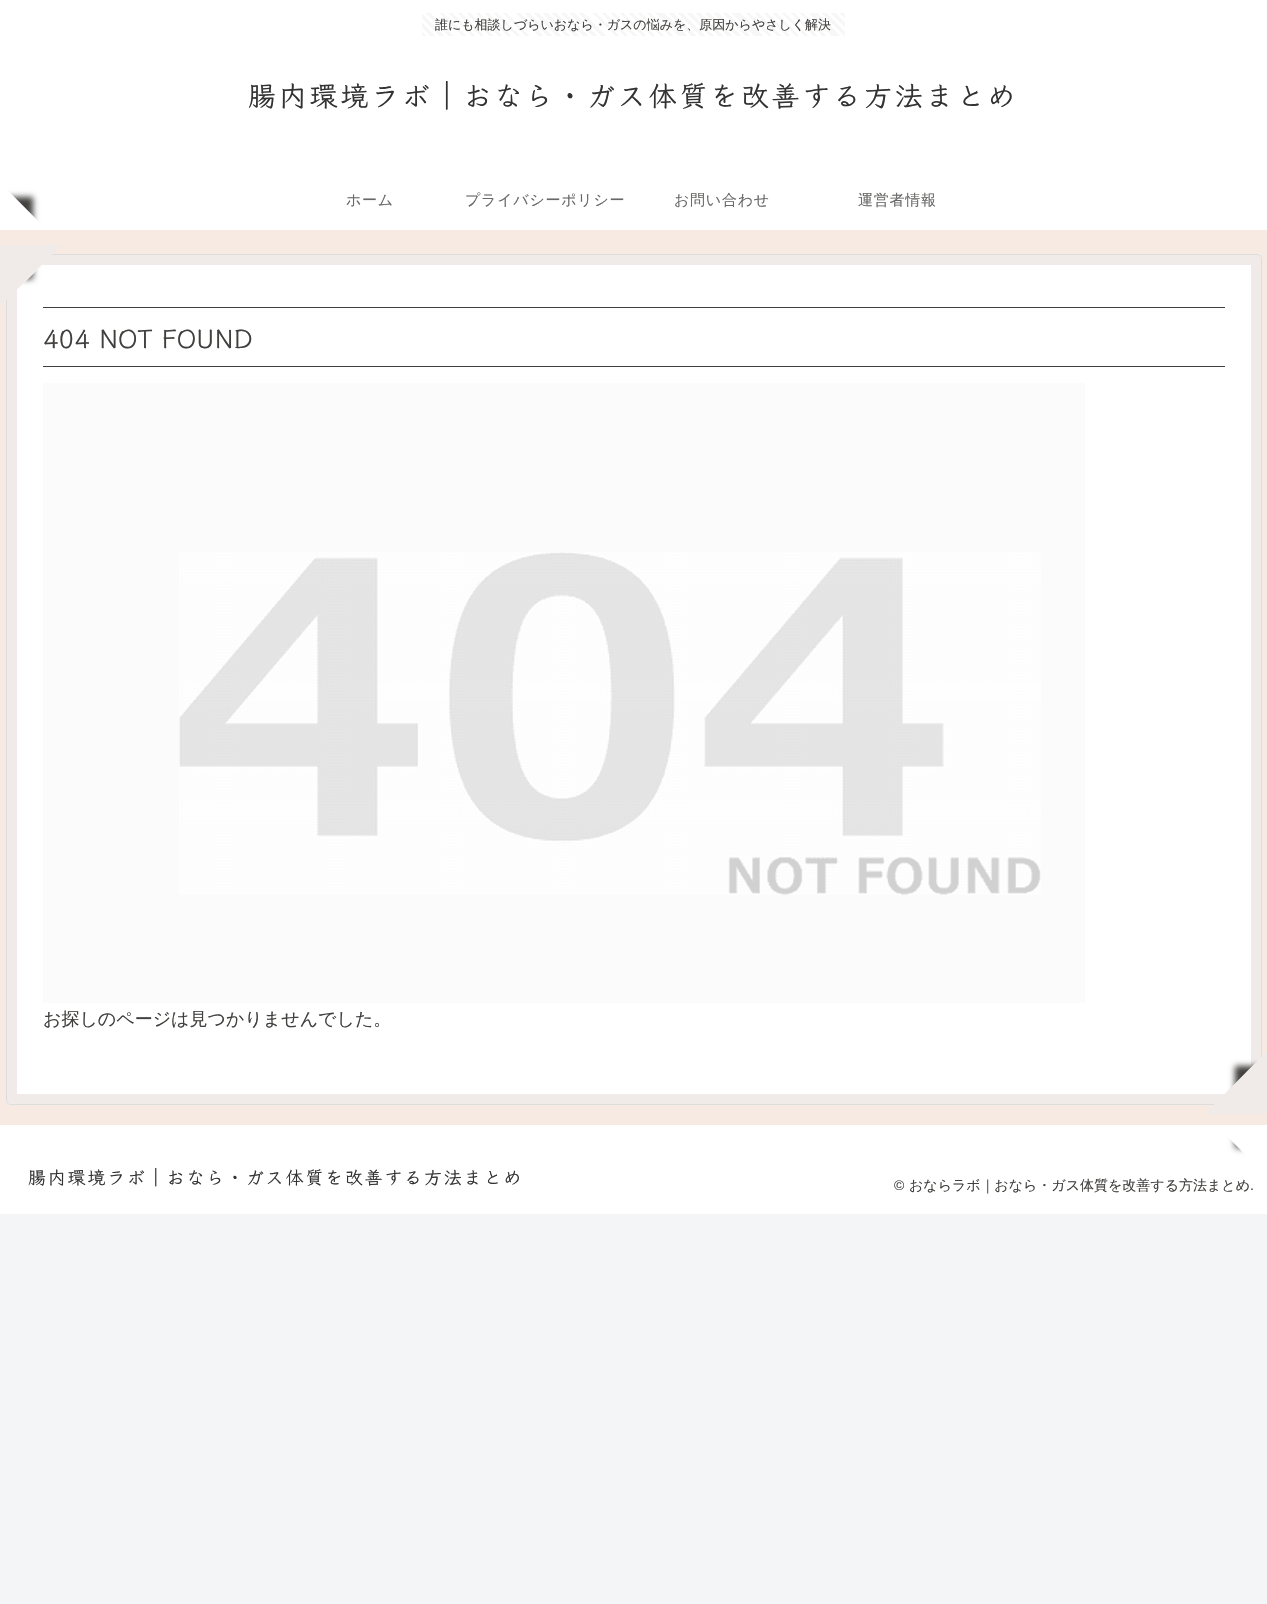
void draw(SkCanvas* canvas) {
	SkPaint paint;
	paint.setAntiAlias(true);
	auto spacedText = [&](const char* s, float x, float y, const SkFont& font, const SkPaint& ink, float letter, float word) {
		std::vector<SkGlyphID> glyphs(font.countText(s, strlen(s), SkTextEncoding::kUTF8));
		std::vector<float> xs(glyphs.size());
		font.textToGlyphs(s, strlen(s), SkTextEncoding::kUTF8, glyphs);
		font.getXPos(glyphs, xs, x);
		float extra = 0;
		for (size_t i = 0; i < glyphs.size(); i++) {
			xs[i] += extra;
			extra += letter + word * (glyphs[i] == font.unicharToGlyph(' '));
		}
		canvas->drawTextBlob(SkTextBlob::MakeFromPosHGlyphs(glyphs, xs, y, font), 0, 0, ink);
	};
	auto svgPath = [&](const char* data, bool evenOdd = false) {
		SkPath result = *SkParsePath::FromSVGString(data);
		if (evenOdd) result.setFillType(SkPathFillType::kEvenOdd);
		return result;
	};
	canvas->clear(0xfff4f5f7);
	paint.setColor(0xfff7eae2);
	canvas->drawRect(SkRect::MakeXYWH(0, 230, 1267, 895), paint);
	paint.setColor(0xffffffff);
	canvas->drawRect(SkRect::MakeXYWH(0, 0, 1267, 230), paint);
	{
		const SkColor colors[] = {0xfff7f7f7, 0xfff7f7f7, 0xffffffff, 0xffffffff, 0xfff7f7f7, 0xfff7f7f7, 0xffffffff, 0xffffffff, 0xfff7f7f7, 0xfff7f7f7, 0xffffffff, 0xffffffff, 0xfff7f7f7, 0xfff7f7f7, 0xffffffff, 0xffffffff, 0xfff7f7f7, 0xffffffff, 0xffffffff, 0xfff7f7f7, 0xfff7f7f7, 0xffffffff, 0xffffffff, 0xfff7f7f7, 0xfff7f7f7, 0xffffffff, 0xffffffff, 0xfff7f7f7, 0xfff7f7f7, 0xffffffff, 0xffffffff, 0xfff7f7f7, 0xfff7f7f7, 0xffffffff, 0xffffffff, 0xfff7f7f7, 0xfff7f7f7, 0xffffffff, 0xffffffff, 0xfff7f7f7, 0xfff7f7f7, 0xffffffff, 0xffffffff, 0xfff7f7f7, 0xfff7f7f7, 0xffffffff, 0xffffffff, 0xfff7f7f7, 0xfff7f7f7, 0xffffffff, 0xffffffff, 0xfff7f7f7, 0xffffffff, 0xffffffff, 0xfff7f7f7, 0xfff7f7f7, 0xffffffff, 0xffffffff, 0xfff7f7f7, 0xfff7f7f7, 0xffffffff, 0xffffffff, 0xfff7f7f7, 0xfff7f7f7, 0xffffffff, 0xffffffff, 0xfff7f7f7, 0xfff7f7f7, 0xffffffff, 0xffffffff, 0xfff7f7f7, 0xfff7f7f7, 0xffffffff, 0xffffffff, 0xfff7f7f7, 0xfff7f7f7, 0xffffffff, 0xffffffff, 0xfff7f7f7, 0xfff7f7f7, 0xffffffff, 0xffffffff, 0xfff7f7f7, 0xfff7f7f7, 0xffffffff, 0xffffffff, 0xfff7f7f7, 0xffffffff, 0xffffffff, 0xfff7f7f7, 0xfff7f7f7, 0xffffffff, 0xffffffff, 0xfff7f7f7, 0xfff7f7f7, 0xffffffff, 0xffffffff, 0xfff7f7f7, 0xfff7f7f7, 0xffffffff, 0xffffffff, 0xfff7f7f7, 0xfff7f7f7, 0xffffffff, 0xffffffff, 0xfff7f7f7, 0xfff7f7f7, 0xffffffff, 0xffffffff, 0xfff7f7f7, 0xfff7f7f7, 0xffffffff, 0xffffffff, 0xfff7f7f7, 0xfff7f7f7, 0xffffffff, 0xffffffff, 0xfff7f7f7, 0xfff7f7f7, 0xffffffff, 0xfff7f7f7, 0xfff7f7f7, 0xffffffff, 0xffffffff, 0xfff7f7f7, 0xfff7f7f7, 0xffffffff, 0xffffffff, 0xfff7f7f7, 0xfff7f7f7, 0xffffffff, 0xffffffff, 0xfff7f7f7, 0xfff7f7f7, 0xffffffff, 0xffffffff, 0xfff7f7f7, 0xfff7f7f7, 0xffffffff, 0xffffffff, 0xfff7f7f7, 0xfff7f7f7, 0xffffffff, 0xffffffff, 0xfff7f7f7, 0xfff7f7f7, 0xffffffff, 0xffffffff, 0xfff7f7f7, 0xfff7f7f7, 0xffffffff, 0xffffffff, 0xfff7f7f7, 0xfff7f7f7, 0xffffffff, 0xfff7f7f7, 0xfff7f7f7, 0xffffffff, 0xffffffff, 0xfff7f7f7, 0xfff7f7f7, 0xffffffff, 0xffffffff, 0xfff7f7f7, 0xfff7f7f7, 0xffffffff, 0xffffffff, 0xfff7f7f7, 0xfff7f7f7, 0xffffffff, 0xffffffff, 0xfff7f7f7, 0xfff7f7f7, 0xffffffff, 0xffffffff, 0xfff7f7f7, 0xfff7f7f7, 0xffffffff, 0xffffffff, 0xfff7f7f7, 0xfff7f7f7, 0xffffffff, 0xffffffff, 0xfff7f7f7, 0xfff7f7f7, 0xffffffff, 0xffffffff, 0xfff7f7f7, 0xfff7f7f7, 0xffffffff, 0xfff7f7f7, 0xfff7f7f7, 0xffffffff, 0xffffffff, 0xfff7f7f7, 0xfff7f7f7, 0xffffffff, 0xffffffff, 0xfff7f7f7, 0xfff7f7f7, 0xffffffff, 0xffffffff, 0xfff7f7f7, 0xfff7f7f7, 0xffffffff, 0xffffffff};
		const float stops[] = {0, 0.01, 0.01, 0.02, 0.02, 0.03, 0.03, 0.04, 0.04, 0.05, 0.05, 0.06, 0.06, 0.07, 0.07, 0.08, 0.08, 0.08, 0.09, 0.09, 0.1, 0.1, 0.11, 0.11, 0.12, 0.12, 0.13, 0.13, 0.14, 0.14, 0.15, 0.15, 0.16, 0.16, 0.17, 0.17, 0.18, 0.18, 0.19, 0.19, 0.2, 0.2, 0.21, 0.21, 0.22, 0.22, 0.23, 0.23, 0.24, 0.24, 0.25, 0.25, 0.25, 0.26, 0.26, 0.27, 0.27, 0.28, 0.28, 0.29, 0.29, 0.3, 0.3, 0.31, 0.31, 0.32, 0.32, 0.33, 0.33, 0.34, 0.34, 0.35, 0.35, 0.36, 0.36, 0.37, 0.37, 0.38, 0.38, 0.39, 0.39, 0.4, 0.4, 0.41, 0.41, 0.42, 0.42, 0.42, 0.43, 0.43, 0.44, 0.44, 0.45, 0.45, 0.46, 0.46, 0.47, 0.47, 0.48, 0.48, 0.49, 0.49, 0.5, 0.5, 0.51, 0.51, 0.52, 0.52, 0.53, 0.53, 0.54, 0.54, 0.55, 0.55, 0.56, 0.56, 0.57, 0.57, 0.58, 0.58, 0.58, 0.59, 0.59, 0.6, 0.6, 0.61, 0.61, 0.62, 0.62, 0.63, 0.63, 0.64, 0.64, 0.65, 0.65, 0.66, 0.66, 0.67, 0.67, 0.68, 0.68, 0.69, 0.69, 0.7, 0.7, 0.71, 0.71, 0.72, 0.72, 0.73, 0.73, 0.74, 0.74, 0.75, 0.75, 0.75, 0.76, 0.76, 0.77, 0.77, 0.78, 0.78, 0.79, 0.79, 0.8, 0.8, 0.81, 0.81, 0.82, 0.82, 0.83, 0.83, 0.84, 0.84, 0.85, 0.85, 0.86, 0.86, 0.87, 0.87, 0.88, 0.88, 0.89, 0.89, 0.9, 0.9, 0.91, 0.91, 0.92, 0.92, 0.92, 0.93, 0.93, 0.94, 0.94, 0.95, 0.95, 0.96, 0.96, 0.97, 0.97, 0.98, 0.98, 0.99, 0.99, 1};
		const SkPoint ends[] = {{522, 136}, {747, -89}};
		paint.setShader(SkGradientShader::MakeLinear(ends, colors, stops, 206, SkTileMode::kClamp));
		paint.setAlpha(255);
	}
	canvas->drawRect(SkRect::MakeXYWH(422, 13, 423, 23), paint);
	SkFont f1(fontMgr->matchFamilyStyle("WenQuanYi Zen Hei", SkFontStyle(500, SkFontStyle::kNormal_Width, SkFontStyle::kUpright_Slant)), 13);
	f1.setSubpixel(true);
	paint.setShader(nullptr);
	paint.setColor(0xff41403e);
	canvas->drawString("誰にも相談しづらいおなら・ガスの悩みを、原因からやさしく解決", 435, 29, f1, paint);
	SkFont f2(fontMgr->matchFamilyStyle("Klee One", SkFontStyle(600, SkFontStyle::kNormal_Width, SkFontStyle::kUpright_Slant)), 28);
	f2.setSubpixel(true);
	paint.setColor(0xff333333);
	spacedText("腸内環境ラボ｜おなら・ガス体質を改善する方法まとめ", 248, 106, f2, paint, 2.8, 0);
	SkFont f3(fontMgr->matchFamilyStyle("WenQuanYi Zen Hei", SkFontStyle(500, SkFontStyle::kNormal_Width, SkFontStyle::kUpright_Slant)), 15);
	f3.setSubpixel(true);
	paint.setColor(0xff696867);
	spacedText("ホーム", 346, 205, f3, paint, 0.75, 0);
	spacedText("プライバシーポリシー", 465, 205, f3, paint, 0.75, 0);
	spacedText("お問い合わせ", 674, 205, f3, paint, 0.75, 0);
	spacedText("運営者情報", 858, 205, f3, paint, 0.75, 0);
	paint.setColor(0xffffffff);
	canvas->drawRoundRect(SkRect::MakeXYWH(6, 254, 1256, 851), 4, 4, paint);
	paint.setStroke(true);
	paint.setStrokeWidth(10);
	paint.setColor(0xfff0ebe8);
	canvas->drawPath(svgPath("M12 260H1256V1099H12Z"), paint);
	paint.setStrokeWidth(1);
	paint.setColor(0xffdddddd);
	canvas->drawRoundRect(SkRect::MakeXYWH(6.5, 254.5, 1255, 850), 3.5, 3.5, paint);
	canvas->save();
	canvas->clipPath(svgPath("M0 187H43V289H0ZM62 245L-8.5 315.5L-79 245L-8.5 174Z", true), true);
	paint.setStroke(false);
	paint.setColor(0xff41403e);
	paint.setMaskFilter(SkMaskFilter::MakeBlur(kNormal_SkBlurStyle, 3));
	canvas->drawRect(SkRect::MakeXYWH(-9, 197, 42, 82), paint);
	paint.setMaskFilter(nullptr);
	canvas->restore();
	paint.setColor(0xfff0ebe8);
	canvas->drawPath(svgPath("M62 245L-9 315L-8 245Z"), paint);
	paint.setColor(0xff41403e);
	canvas->drawRect(SkRect::MakeXYWH(43, 307, 1182, 1), paint);
	canvas->drawRect(SkRect::MakeXYWH(43, 366, 1182, 1), paint);
	SkFont f4(fontMgr->matchFamilyStyle("Klee One", SkFontStyle(600, SkFontStyle::kNormal_Width, SkFontStyle::kUpright_Slant)), 26);
	f4.setSubpixel(true);
	canvas->drawString("404 NOT FOUND", 43, 348, f4, paint);
	paint.setColor(0xfffbfbfb);
	canvas->drawRect(SkRect::MakeXYWH(43, 383, 1042, 620), paint);
	canvas->drawImageRect(SkImages::DeferredFromEncodedData(SkData::MakeFromFileName("img1.png")), SkRect::MakeXYWH(179, 552, 862, 343), SkSamplingOptions());
	SkFont f5(fontMgr->matchFamilyStyle("WenQuanYi Zen Hei", SkFontStyle(500, SkFontStyle::kNormal_Width, SkFontStyle::kUpright_Slant)), 18);
	f5.setSubpixel(true);
	paint.setColor(0xff41403e);
	canvas->drawString("お探しのページは見つかりませんでした。", 43, 1025, f5, paint);
	paint.setColor(0xffffffff);
	canvas->drawRect(SkRect::MakeXYWH(0, 1125, 1267, 89), paint);
	canvas->save();
	canvas->clipPath(svgPath("M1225 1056H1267V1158H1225ZM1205 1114L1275.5 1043.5L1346 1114L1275.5 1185Z", true), true);
	paint.setColor(0xff41403e);
	paint.setMaskFilter(SkMaskFilter::MakeBlur(kNormal_SkBlurStyle, 3));
	canvas->drawRect(SkRect::MakeXYWH(1235, 1066, 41, 82), paint);
	paint.setMaskFilter(nullptr);
	canvas->restore();
	paint.setColor(0xfff0ebe8);
	canvas->drawPath(svgPath("M1205 1114L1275 1043L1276 1114Z"), paint);
	SkFont f6(fontMgr->matchFamilyStyle("Klee One", SkFontStyle(600, SkFontStyle::kNormal_Width, SkFontStyle::kUpright_Slant)), 18);
	f6.setSubpixel(true);
	paint.setColor(0xff333333);
	spacedText("腸内環境ラボ｜おなら・ガス体質を改善する方法まとめ", 28, 1184, f6, paint, 1.8, 0);
	SkFont f7(fontMgr->matchFamilyStyle("Liberation Sans", SkFontStyle::Normal()), 14);
	f7.setSubpixel(true);
	paint.setColor(0xff41403e);
	canvas->drawString("©", 894, 1190, f7, paint);
	SkFont f8(fontMgr->matchFamilyStyle("WenQuanYi Zen Hei", SkFontStyle(500, SkFontStyle::kNormal_Width, SkFontStyle::kUpright_Slant)), 14);
	f8.setSubpixel(true);
	canvas->drawString("おならラボ｜おなら・ガス体質を改善する方法まとめ", 909, 1190, f8, paint);
	canvas->drawString(".", 1250, 1190, f7, paint);
}
